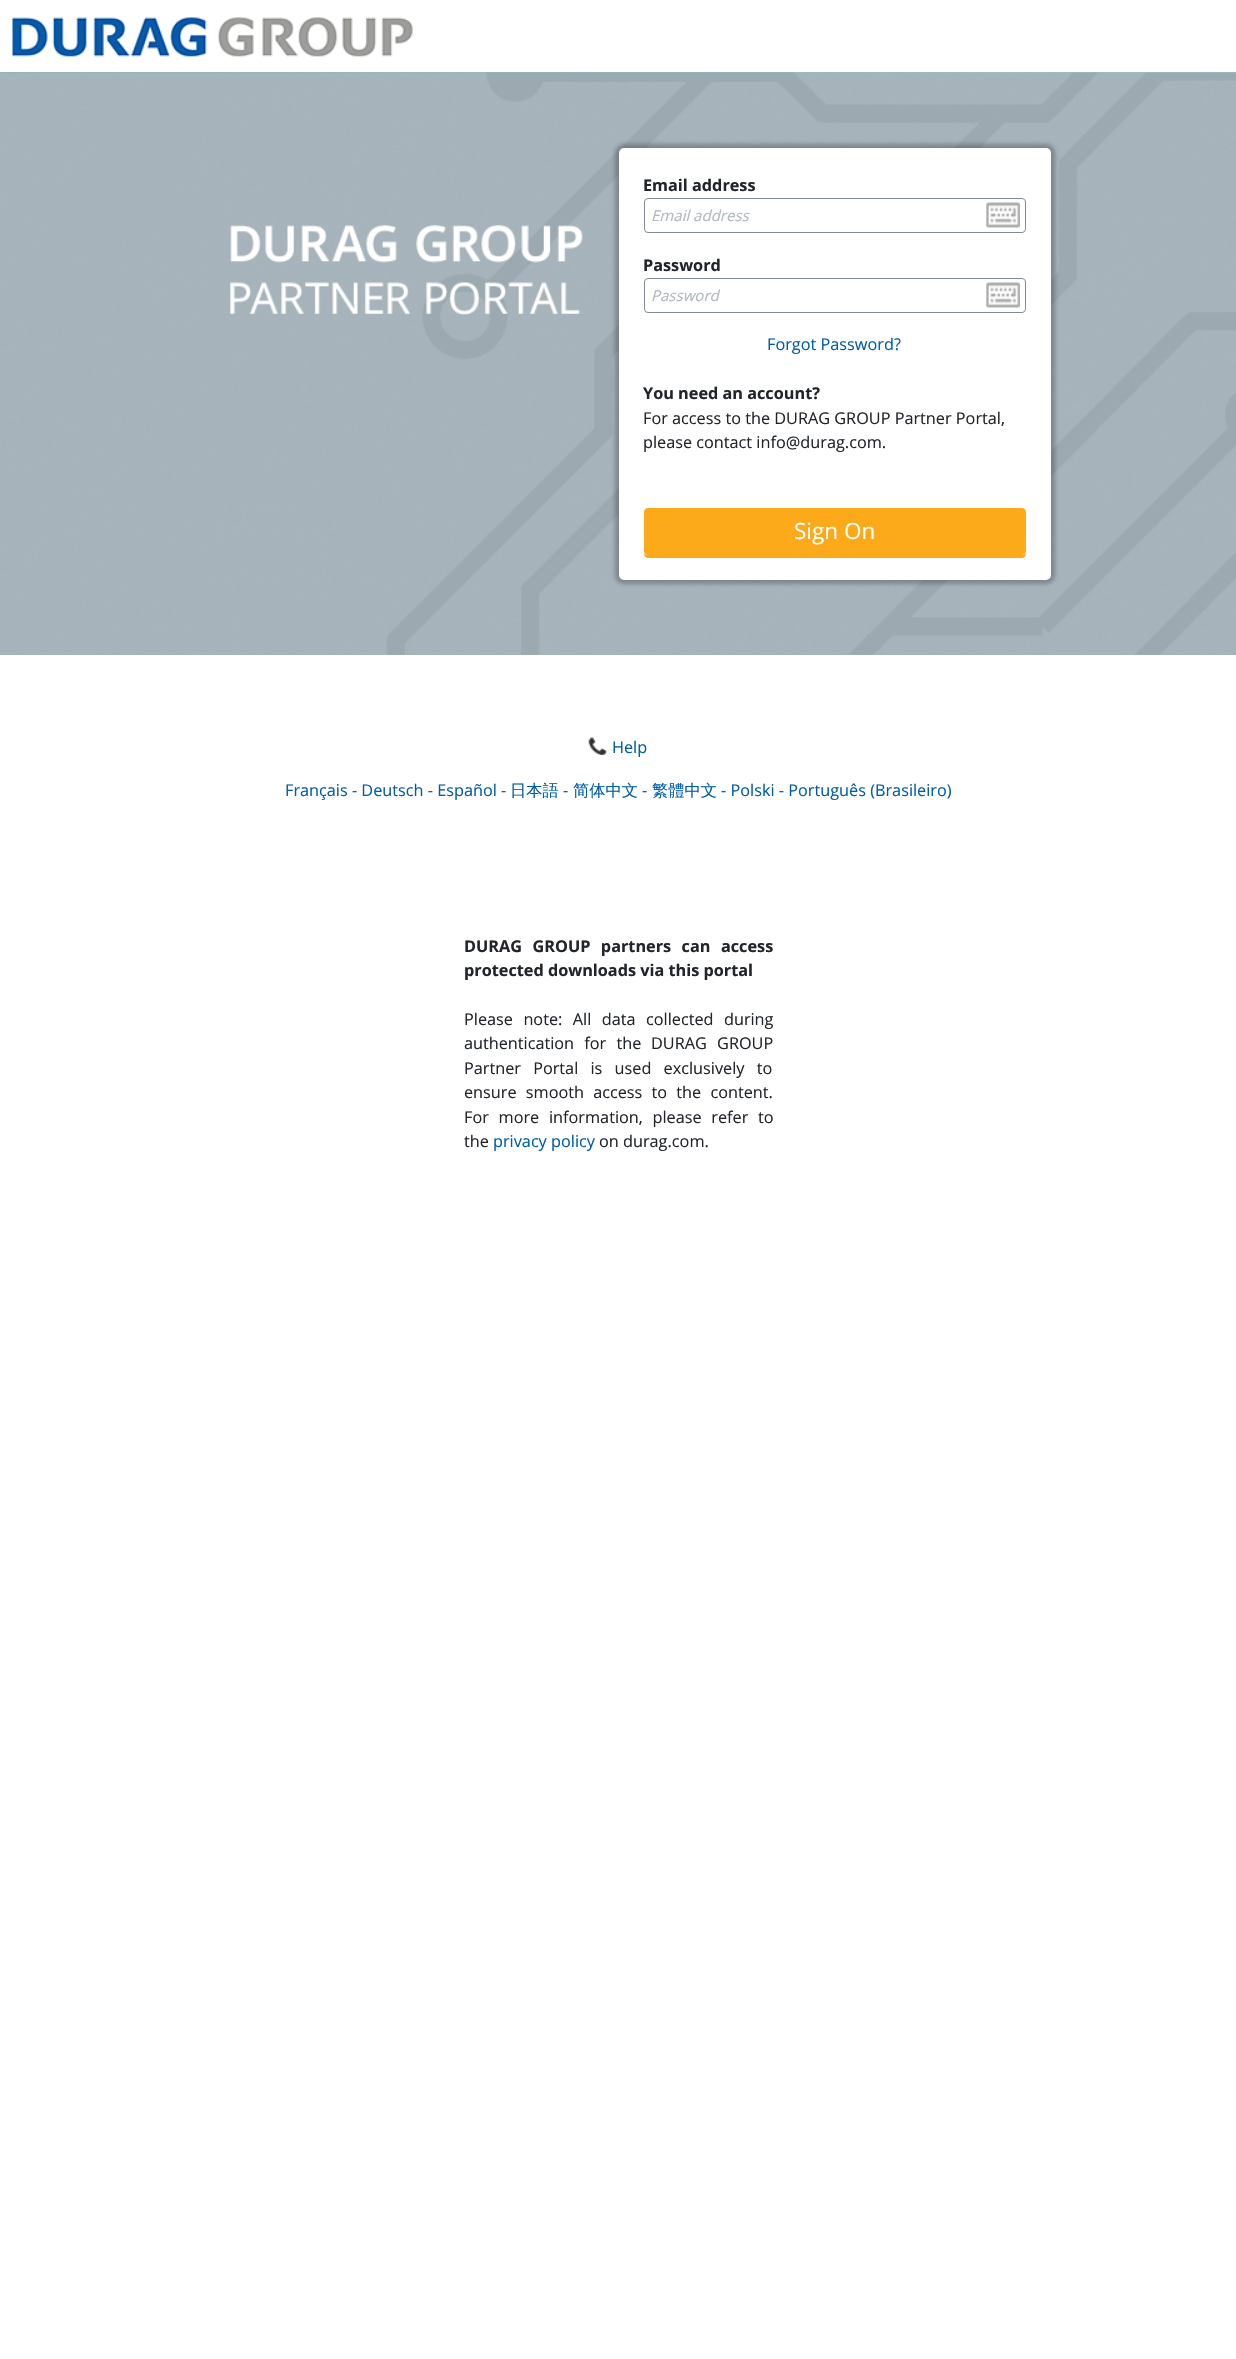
void draw(SkCanvas* canvas) {
	SkPaint paint;
	paint.setAntiAlias(true);
	auto spacedText = [&](const char* s, float x, float y, const SkFont& font, const SkPaint& ink, float letter, float word) {
		std::vector<SkGlyphID> glyphs(font.countText(s, strlen(s), SkTextEncoding::kUTF8));
		std::vector<float> xs(glyphs.size());
		font.textToGlyphs(s, strlen(s), SkTextEncoding::kUTF8, glyphs);
		font.getXPos(glyphs, xs, x);
		float extra = 0;
		for (size_t i = 0; i < glyphs.size(); i++) {
			xs[i] += extra;
			extra += letter + word * (glyphs[i] == font.unicharToGlyph(' '));
		}
		canvas->drawTextBlob(SkTextBlob::MakeFromPosHGlyphs(glyphs, xs, y, font), 0, 0, ink);
	};
	auto svgPath = [&](const char* data, bool evenOdd = false) {
		SkPath result = *SkParsePath::FromSVGString(data);
		if (evenOdd) result.setFillType(SkPathFillType::kEvenOdd);
		return result;
	};
	canvas->clear(0xffffffff);
	canvas->drawImageRect(SkImages::DeferredFromEncodedData(SkData::MakeFromFileName("img1.png")), SkRect::MakeXYWH(12, 17, 401, 40), SkSamplingOptions());
	canvas->drawImageRect(SkImages::DeferredFromEncodedData(SkData::MakeFromFileName("img2.png")), SkRect::MakeXYWH(0, 72, 1236, 583), SkSamplingOptions());
	paint.setColor(0x40000000);
	paint.setMaskFilter(SkMaskFilter::MakeBlur(kNormal_SkBlurStyle, 2));
	canvas->drawRoundRect(SkRect::MakeXYWH(615, 144, 440, 440), 9, 9, paint);
	paint.setMaskFilter(nullptr);
	paint.setColor(0xffffffff);
	canvas->drawRoundRect(SkRect::MakeXYWH(619, 148, 432, 432), 5, 5, paint);
	canvas->drawImageRect(SkImages::DeferredFromEncodedData(SkData::MakeFromFileName("img3.png")), SkRect::MakeXYWH(230, 225, 353, 90), SkSamplingOptions());
	SkFont f1(fontMgr->matchFamilyStyle("Open Sans", SkFontStyle::Bold()), 16.25);
	f1.setSubpixel(true);
	paint.setColor(0xff212529);
	canvas->drawString("Email address", 643, 191, f1, paint);
	paint.setStroke(true);
	paint.setStrokeWidth(1);
	paint.setColor(0xff818b95);
	canvas->drawRoundRect(SkRect::MakeXYWH(644.5, 198.5, 381, 34), 3.5, 3.5, paint);
	SkFont f2(fontMgr->matchFamilyStyle("Open Sans", SkFontStyle::Italic()), 15);
	f2.setSubpixel(true);
	paint.setStroke(false);
	paint.setColor(0xffafb8bc);
	canvas->drawString("Email address", 651, 221, f2, paint);
	canvas->drawImageRect(SkImages::DeferredFromEncodedData(SkData::MakeFromFileName("img4.png")), SkRect::MakeXYWH(986, 202, 34, 26), SkSamplingOptions());
	paint.setColor(0xff212529);
	canvas->drawString("Password", 643, 271, f1, paint);
	paint.setStroke(true);
	paint.setColor(0xff818b95);
	canvas->drawRoundRect(SkRect::MakeXYWH(644.5, 278.5, 381, 34), 3.5, 3.5, paint);
	paint.setStroke(false);
	paint.setColor(0xffafb8bc);
	canvas->drawString("Password", 651, 301, f2, paint);
	canvas->drawImageRect(SkImages::DeferredFromEncodedData(SkData::MakeFromFileName("img5.png")), SkRect::MakeXYWH(986, 282, 34, 26), SkSamplingOptions());
	SkFont f3(fontMgr->matchFamilyStyle("Open Sans", SkFontStyle::Normal()), 16.25);
	f3.setSubpixel(true);
	paint.setColor(0xff005ca9);
	canvas->drawString("Forgot Password?", 767, 350, f3, paint);
	paint.setColor(0xff212529);
	canvas->drawString("You need an account?", 643, 399, f1, paint);
	canvas->drawString("For access to the DURAG GROUP Partner Portal,", 643, 424, f3, paint);
	canvas->drawString("please contact info@durag.com.", 643, 448, f3, paint);
	paint.setColor(0xfffdaa1a);
	canvas->drawPath(svgPath("M644 553V554C644 556 646 558 648 558H1022C1024 558 1026 556 1026 554V553C1025 554 1024 555 1022 555H648C646 555 645 554 644 553Z"), paint);
	canvas->drawRoundRect(SkRect::MakeXYWH(644.5, 508.5, 381, 46), 3.5, 3.5, paint);
	paint.setStroke(true);
	canvas->drawRoundRect(SkRect::MakeXYWH(644.5, 508.5, 381, 46), 3.5, 3.5, paint);
	SkFont f4(fontMgr->matchFamilyStyle("Open Sans", SkFontStyle::Normal()), 22.5);
	f4.setSubpixel(true);
	paint.setStroke(false);
	paint.setColor(0xffffffff);
	canvas->drawString("Sign On", 794, 539, f4, paint);
	canvas->drawImageRect(SkImages::DeferredFromEncodedData(SkData::MakeFromFileName("img6.png")), SkRect::MakeXYWH(588, 737, 19, 18), SkSamplingOptions());
	paint.setColor(0xff005ca9);
	canvas->drawString("Help", 612, 753, f3, paint);
	canvas->drawString("Français - Deutsch - Español -", 285, 796, f3, paint);
	SkFont f5(fontMgr->matchFamilyStyle("WenQuanYi Zen Hei", SkFontStyle(500, SkFontStyle::kNormal_Width, SkFontStyle::kUpright_Slant)), 16.25);
	f5.setSubpixel(true);
	canvas->drawString("日本語", 510, 796, f5, paint);
	canvas->drawString("-", 563, 796, f3, paint);
	canvas->drawString("简体中文", 573, 796, f5, paint);
	canvas->drawString("-", 642, 796, f3, paint);
	canvas->drawString("繁體中文", 652, 796, f5, paint);
	canvas->drawString("- Polski - Português (Brasileiro)", 721, 796, f3, paint);
	paint.setColor(0xff212529);
	spacedText("DURAG GROUP partners can access", 464, 952, f1, paint, 0, 6.25);
	canvas->drawString("protected downloads via this portal", 464, 976, f1, paint);
	spacedText("Please note: All data collected during", 464, 1025, f3, paint, 0, 6.25);
	spacedText("authentication for the", 464, 1049, f3, paint, 0, 6);
	spacedText("DURAG GROUP", 651, 1049, f3, paint, 0, 6);
	spacedText("Partner Portal is used exclusively to", 464, 1074, f3, paint, 0, 8);
	spacedText("ensure smooth access to the content.", 464, 1098, f3, paint, 0, 5);
	spacedText("For more information, please refer to", 464, 1123, f3, paint, 0, 5.5);
	canvas->drawString("the", 464, 1147, f3, paint);
	paint.setColor(0xff005ca9);
	canvas->drawString("privacy policy", 493, 1147, f3, paint);
	paint.setColor(0xff212529);
	canvas->drawString("on durag.com.", 599, 1147, f3, paint);
}
